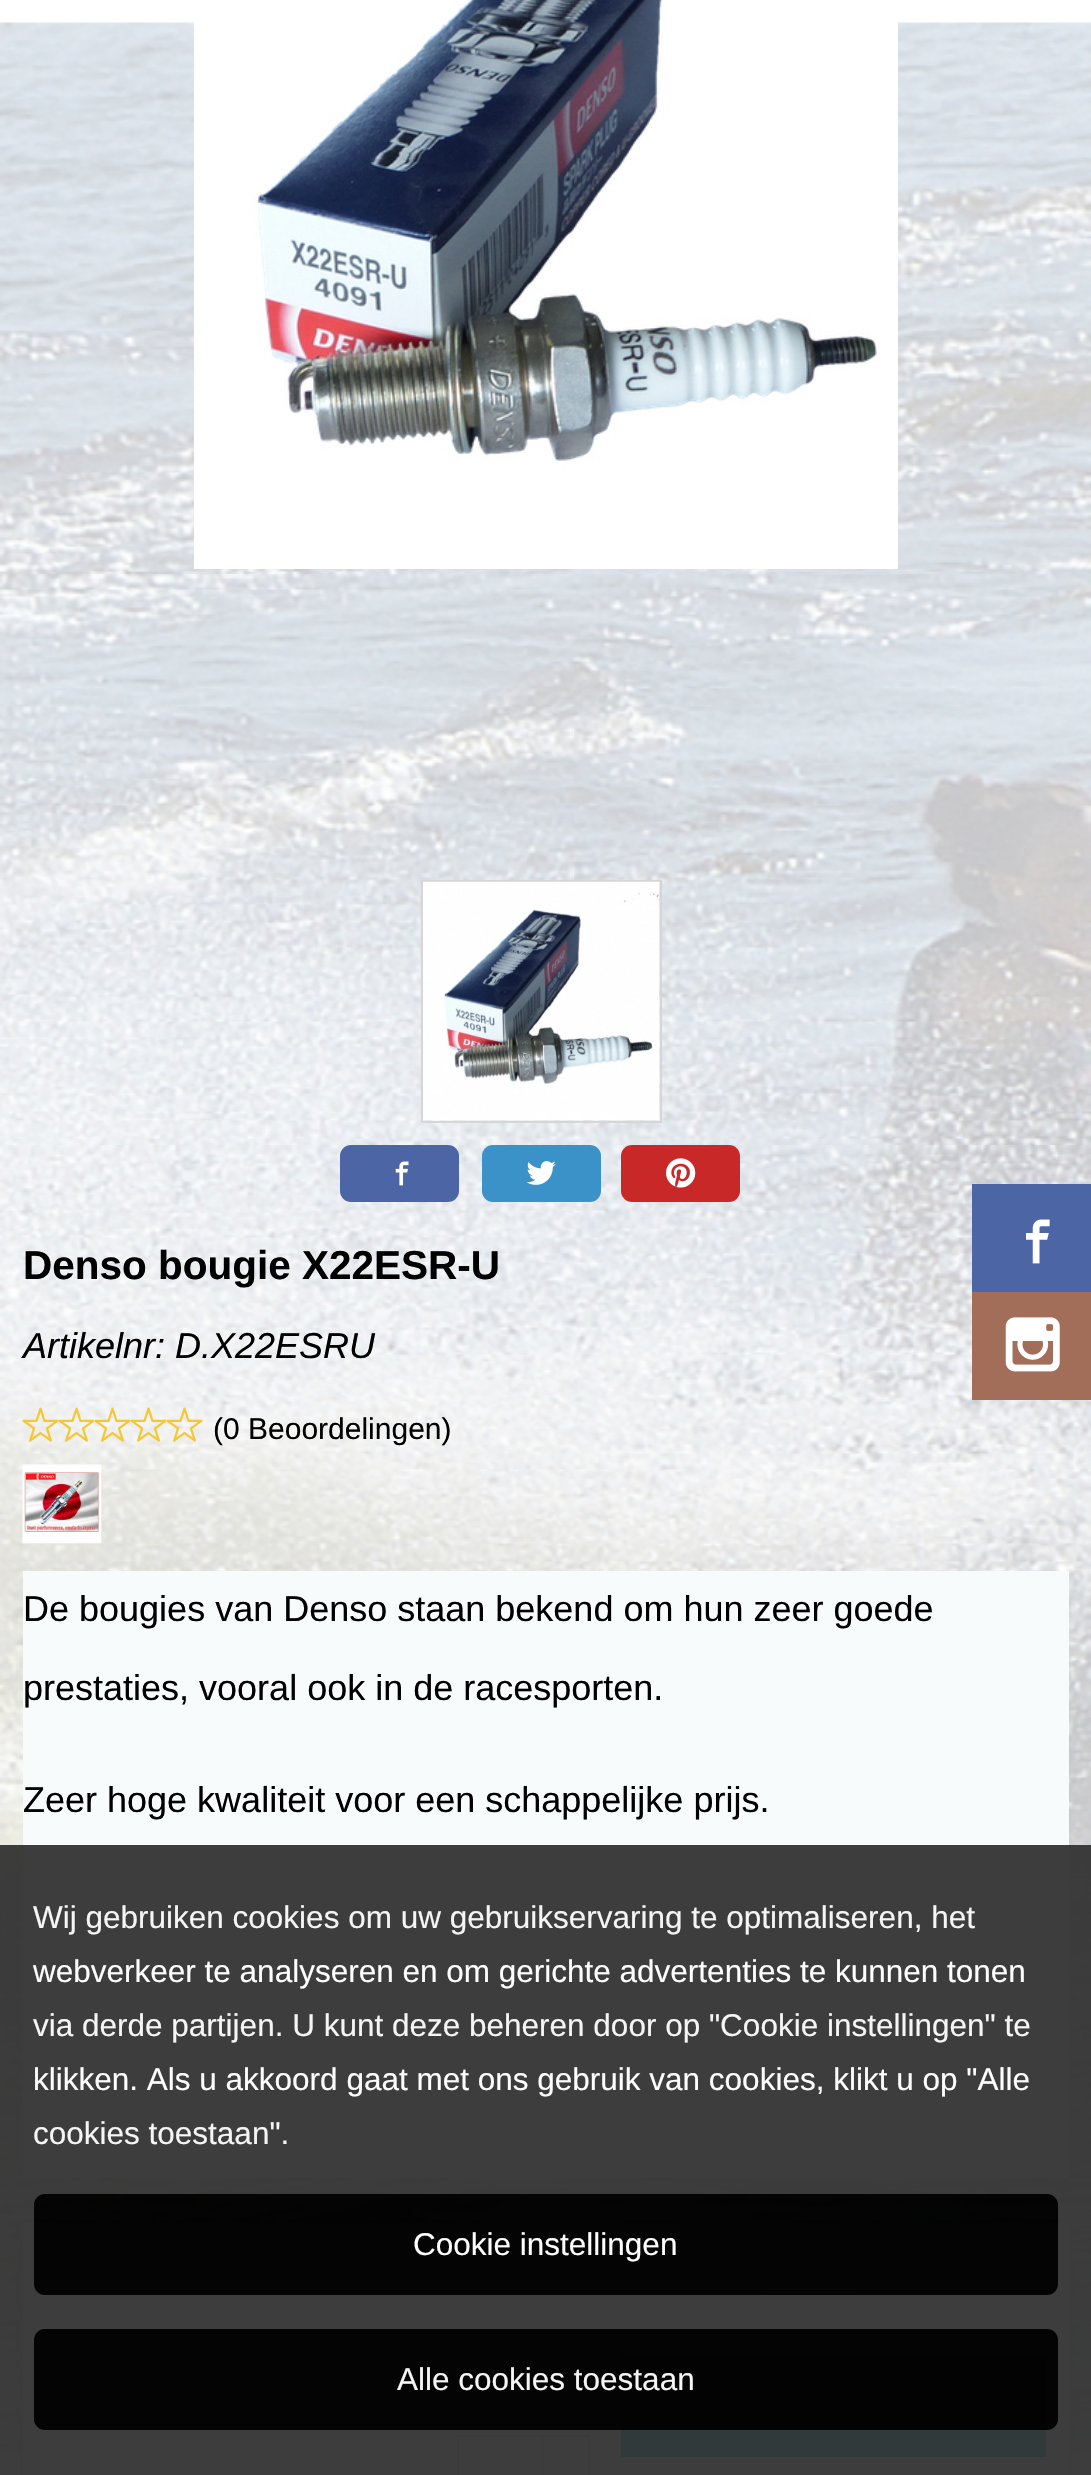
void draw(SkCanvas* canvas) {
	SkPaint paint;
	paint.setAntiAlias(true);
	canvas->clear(0xffffffff);
	canvas->drawImageRect(SkImages::DeferredFromEncodedData(SkData::MakeFromFileName("img1.png")), SkRect::MakeXYWH(0, 22, 1091, 2431), SkSamplingOptions());
	canvas->drawImageRect(SkImages::DeferredFromEncodedData(SkData::MakeFromFileName("img2.png")), SkRect::MakeXYWH(194, 0, 704, 569), SkSamplingOptions());
	paint.setStroke(true);
	paint.setStrokeWidth(2);
	paint.setColor(0xffd6d6d6);
	canvas->drawRect(SkRect::MakeXYWH(422, 881, 239, 241), paint);
	canvas->drawImageRect(SkImages::DeferredFromEncodedData(SkData::MakeFromFileName("img3.png")), SkRect::MakeXYWH(423, 881, 237, 240), SkSamplingOptions());
	paint.setStroke(false);
	paint.setColor(0xff4c65a5);
	canvas->drawRoundRect(SkRect::MakeXYWH(340, 1145, 119, 57), 11, 11, paint);
	canvas->drawImageRect(SkImages::DeferredFromEncodedData(SkData::MakeFromFileName("img4.png")), SkRect::MakeXYWH(395, 1161, 14, 25), SkSamplingOptions());
	paint.setColor(0xff3b92c8);
	canvas->drawRoundRect(SkRect::MakeXYWH(482, 1145, 119, 57), 11, 11, paint);
	canvas->drawImageRect(SkImages::DeferredFromEncodedData(SkData::MakeFromFileName("img5.png")), SkRect::MakeXYWH(526, 1161, 30, 24), SkSamplingOptions());
	paint.setColor(0xffc82828);
	canvas->drawRoundRect(SkRect::MakeXYWH(621, 1145, 119, 57), 11, 11, paint);
	canvas->drawImageRect(SkImages::DeferredFromEncodedData(SkData::MakeFromFileName("img6.png")), SkRect::MakeXYWH(666, 1158, 30, 30), SkSamplingOptions());
	SkFont f1(fontMgr->matchFamilyStyle("Liberation Sans", SkFontStyle::Bold()), 40.5);
	f1.setSubpixel(true);
	paint.setColor(0xff000000);
	canvas->drawString("Denso bougie X22ESR-U", 23, 1279, f1, paint);
	SkFont f2(fontMgr->matchFamilyStyle("Liberation Sans", SkFontStyle::Italic()), 36);
	f2.setSubpixel(true);
	canvas->drawString("Artikelnr: D.X22ESRU", 23, 1358, f2, paint);
	canvas->drawImageRect(SkImages::DeferredFromEncodedData(SkData::MakeFromFileName("img7.png")), SkRect::MakeXYWH(22, 1407, 37, 35), SkSamplingOptions());
	canvas->drawImageRect(SkImages::DeferredFromEncodedData(SkData::MakeFromFileName("img8.png")), SkRect::MakeXYWH(58, 1407, 37, 35), SkSamplingOptions());
	canvas->drawImageRect(SkImages::DeferredFromEncodedData(SkData::MakeFromFileName("img9.png")), SkRect::MakeXYWH(94, 1407, 37, 35), SkSamplingOptions());
	canvas->drawImageRect(SkImages::DeferredFromEncodedData(SkData::MakeFromFileName("img10.png")), SkRect::MakeXYWH(130, 1407, 37, 35), SkSamplingOptions());
	canvas->drawImageRect(SkImages::DeferredFromEncodedData(SkData::MakeFromFileName("img11.png")), SkRect::MakeXYWH(166, 1407, 37, 35), SkSamplingOptions());
	SkFont f3(fontMgr->matchFamilyStyle("Liberation Sans", SkFontStyle::Normal()), 30);
	f3.setSubpixel(true);
	canvas->drawString("(0 Beoordelingen)", 213, 1439, f3, paint);
	canvas->drawImageRect(SkImages::DeferredFromEncodedData(SkData::MakeFromFileName("img12.png")), SkRect::MakeXYWH(22, 1464, 80, 80), SkSamplingOptions());
	paint.setColor(0xfff7fbfc);
	canvas->drawRect(SkRect::MakeXYWH(23, 1571, 1046, 607), paint);
	SkFont f4(fontMgr->matchFamilyStyle("Liberation Sans", SkFontStyle::Normal()), 36);
	f4.setSubpixel(true);
	paint.setColor(0xff000000);
	canvas->drawString("De bougies van Denso staan bekend om hun zeer goede", 23, 1621, f4, paint);
	canvas->drawString("prestaties, vooral ook in de racesporten.", 23, 1700, f4, paint);
	canvas->drawString("Zeer hoge kwaliteit voor een schappelijke prijs.", 23, 1812, f4, paint);
	paint.setColor(0xffcccccc);
	paint.setMaskFilter(SkMaskFilter::MakeBlur(kNormal_SkBlurStyle, 7));
	canvas->drawRect(SkRect::MakeXYWH(23, 2225, 1046, 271), paint);
	paint.setMaskFilter(nullptr);
	paint.setColor(0xfffafafa);
	canvas->drawRect(SkRect::MakeXYWH(23, 2223, 1046, 252), paint);
	paint.setColor(0xff093de8);
	canvas->drawRect(SkRect::MakeXYWH(765, 2293, 90, 2), paint);
	paint.setColor(0xffffffff);
	canvas->drawRect(SkRect::MakeXYWH(458, 2436, 131, 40), paint);
	paint.setStroke(true);
	paint.setColor(0xffcccccc);
	canvas->drawRect(SkRect::MakeXYWH(458, 2436, 131, 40), paint);
	paint.setStroke(false);
	canvas->drawRect(SkRect::MakeXYWH(542, 2435, 2, 40), paint);
	paint.setColor(0xff06b8b9);
	canvas->drawRect(SkRect::MakeXYWH(621, 2356, 425, 101), paint);
	paint.setColor(0xff4c65a5);
	canvas->drawRect(SkRect::MakeXYWH(972, 1184, 119, 108), paint);
	canvas->drawImageRect(SkImages::DeferredFromEncodedData(SkData::MakeFromFileName("img13.png")), SkRect::MakeXYWH(1026, 1219, 24, 45), SkSamplingOptions());
	paint.setColor(0xffa26e59);
	canvas->drawRect(SkRect::MakeXYWH(972, 1292, 119, 108), paint);
	canvas->drawImageRect(SkImages::DeferredFromEncodedData(SkData::MakeFromFileName("img14.png")), SkRect::MakeXYWH(1005, 1317, 55, 55), SkSamplingOptions());
	paint.setColor(0xf2333333);
	canvas->drawRect(SkRect::MakeXYWH(0, 1845, 1091, 630), paint);
	SkFont f5(fontMgr->matchFamilyStyle("Liberation Sans", SkFontStyle::Normal()), 31.5);
	f5.setSubpixel(true);
	paint.setColor(0xfff5f5f5);
	canvas->drawString("Wij gebruiken cookies om uw gebruikservaring te optimaliseren, het", 33, 1928, f5, paint);
	paint.setColor(0xffffffff);
	canvas->drawString("webverkeer te analyseren en om gerichte advertenties te kunnen tonen", 33, 1982, f5, paint);
	paint.setColor(0xfff5f5f5);
	canvas->drawString("via derde partijen. U kunt deze beheren door op \"Cookie instellingen\" te", 33, 2036, f5, paint);
	paint.setColor(0xffffffff);
	canvas->drawString("klikken. Als u akkoord gaat met ons gebruik van cookies, klikt u op \"Alle", 33, 2090, f5, paint);
	paint.setColor(0xfff5f5f5);
	canvas->drawString("cookies toestaan\".", 33, 2144, f5, paint);
	paint.setColor(0xf2000000);
	canvas->drawRoundRect(SkRect::MakeXYWH(34, 2194, 1024, 101), 11, 11, paint);
	paint.setColor(0xffffffff);
	canvas->drawString("Cookie instellingen", 413, 2255, f5, paint);
	paint.setColor(0xf2000000);
	canvas->drawRoundRect(SkRect::MakeXYWH(34, 2329, 1024, 101), 11, 11, paint);
	paint.setColor(0xfff5f5f5);
	canvas->drawString("Alle cookies toestaan", 397, 2390, f5, paint);
}
